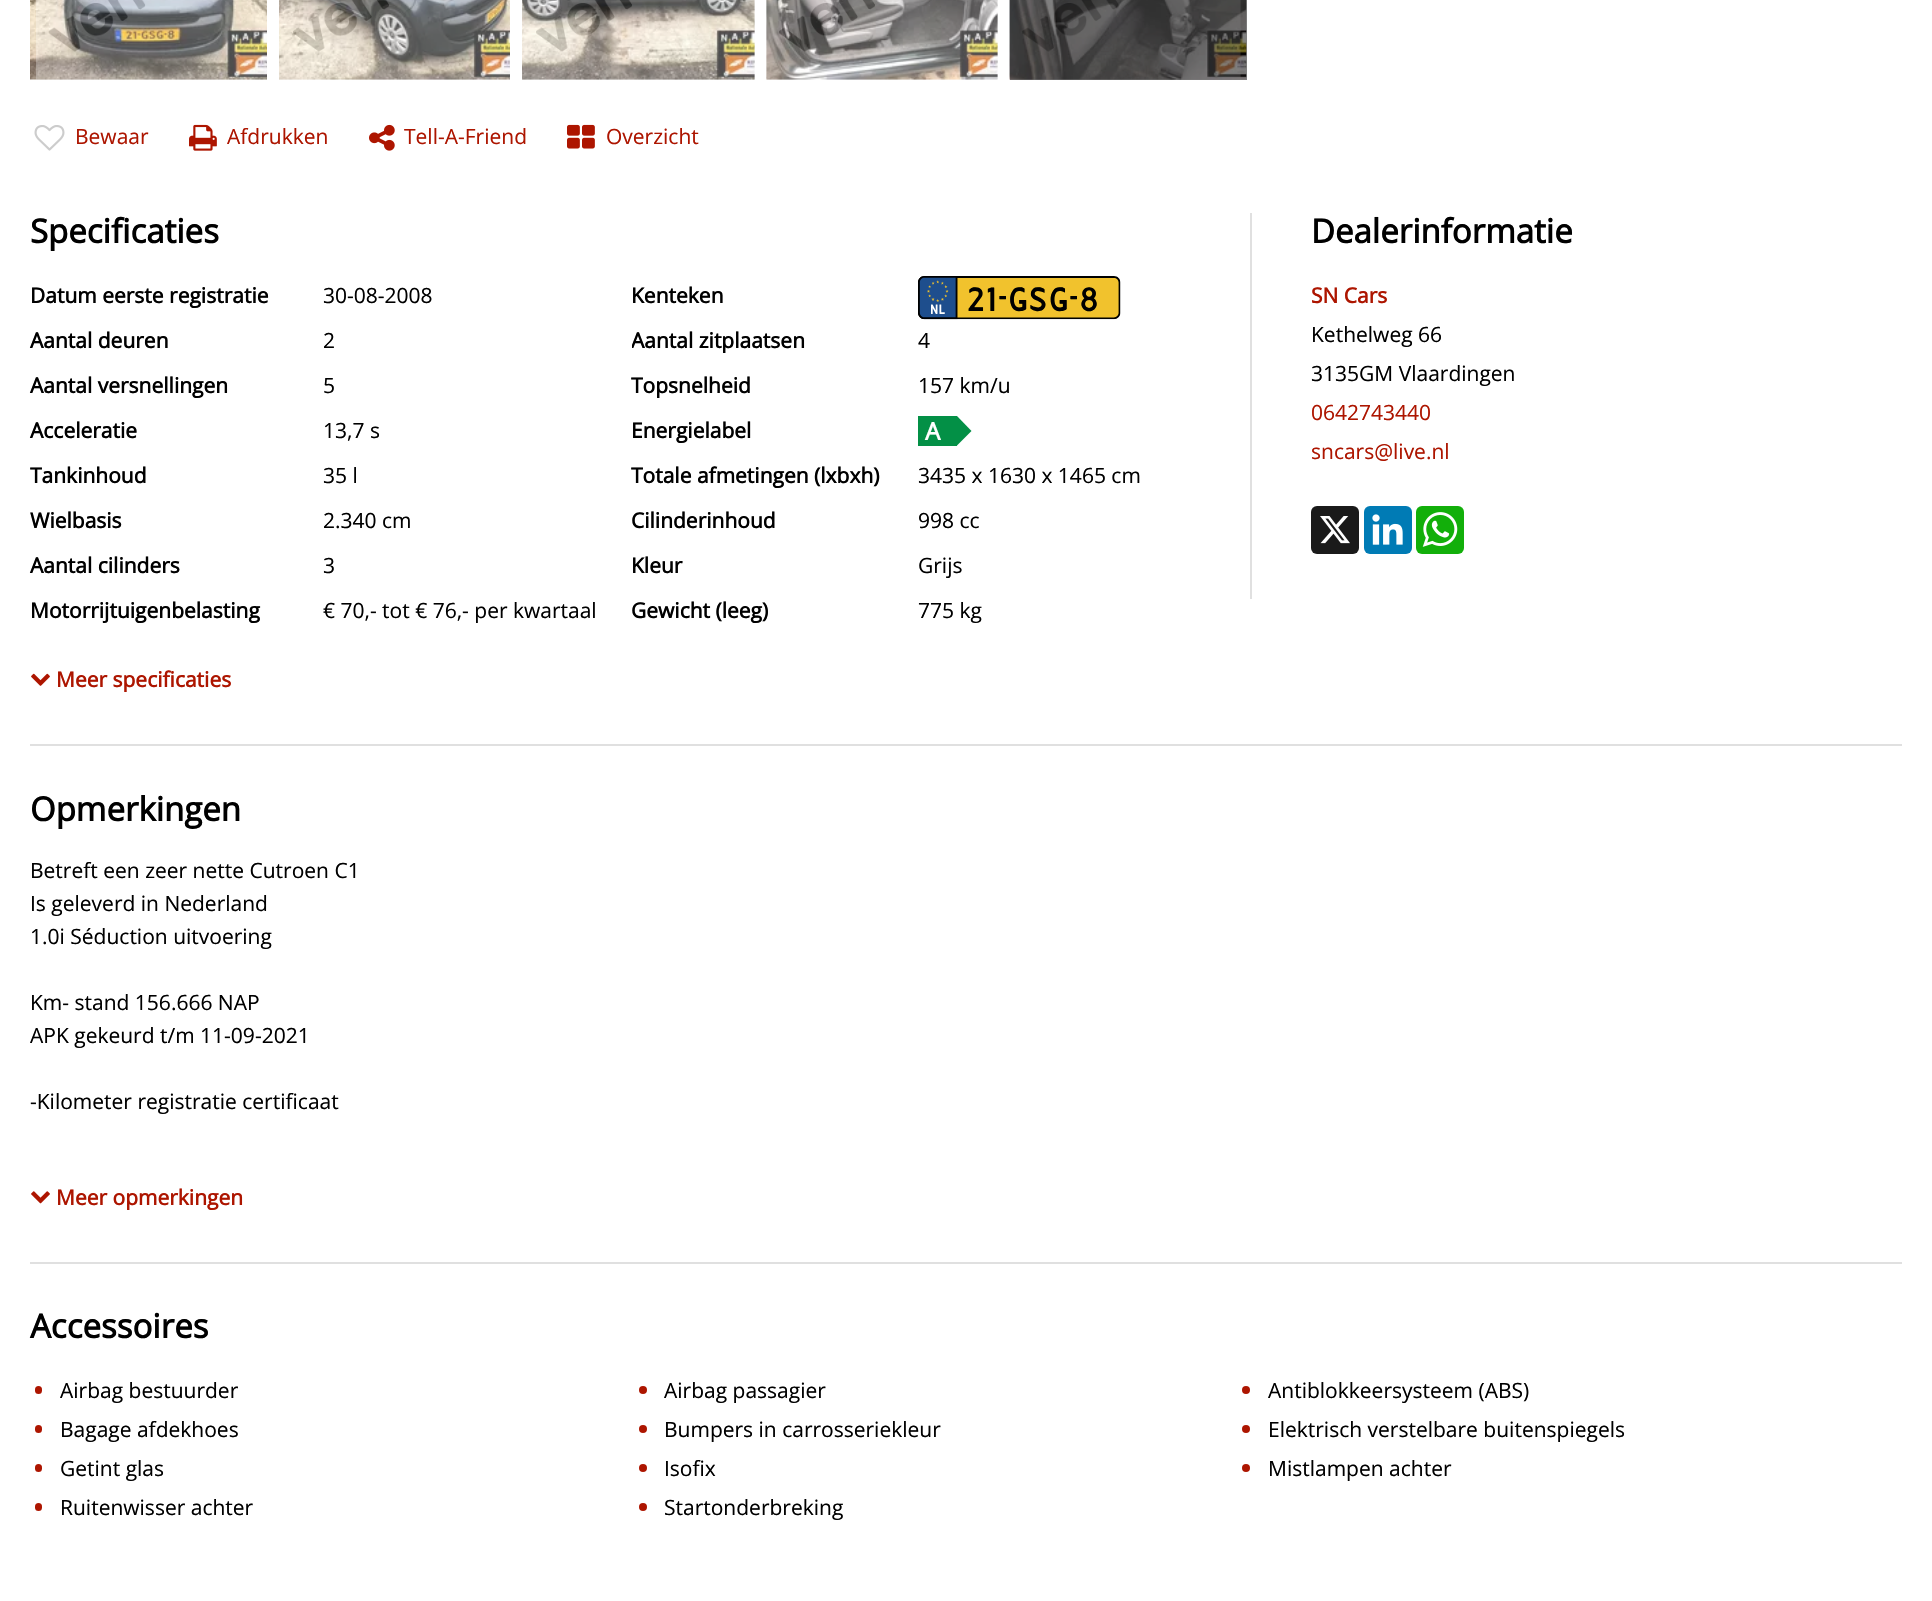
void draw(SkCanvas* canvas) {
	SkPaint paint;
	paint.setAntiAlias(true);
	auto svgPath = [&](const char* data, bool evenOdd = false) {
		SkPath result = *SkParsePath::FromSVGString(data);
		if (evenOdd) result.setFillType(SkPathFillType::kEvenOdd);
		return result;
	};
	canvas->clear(0xffffffff);
	paint.setColor(0xff808080);
	canvas->drawRect(SkRect::MakeXYWH(1010, 0, 237, 80), paint);
	canvas->drawImageRect(SkImages::DeferredFromEncodedData(SkData::MakeFromFileName("img1.png")), SkRect::MakeXYWH(30, 0, 237, 80), SkSamplingOptions());
	canvas->drawImageRect(SkImages::DeferredFromEncodedData(SkData::MakeFromFileName("img2.png")), SkRect::MakeXYWH(36, 0, 231, 80), SkSamplingOptions());
	canvas->drawImageRect(SkImages::DeferredFromEncodedData(SkData::MakeFromFileName("img3.png")), SkRect::MakeXYWH(279, 0, 231, 80), SkSamplingOptions());
	canvas->drawImageRect(SkImages::DeferredFromEncodedData(SkData::MakeFromFileName("img4.png")), SkRect::MakeXYWH(279, 0, 231, 80), SkSamplingOptions());
	canvas->drawImageRect(SkImages::DeferredFromEncodedData(SkData::MakeFromFileName("img5.png")), SkRect::MakeXYWH(522, 0, 233, 80), SkSamplingOptions());
	canvas->drawImageRect(SkImages::DeferredFromEncodedData(SkData::MakeFromFileName("img6.png")), SkRect::MakeXYWH(522, 0, 233, 80), SkSamplingOptions());
	canvas->drawImageRect(SkImages::DeferredFromEncodedData(SkData::MakeFromFileName("img7.png")), SkRect::MakeXYWH(766, 0, 232, 80), SkSamplingOptions());
	canvas->drawImageRect(SkImages::DeferredFromEncodedData(SkData::MakeFromFileName("img8.png")), SkRect::MakeXYWH(766, 0, 232, 80), SkSamplingOptions());
	canvas->drawImageRect(SkImages::DeferredFromEncodedData(SkData::MakeFromFileName("img9.png")), SkRect::MakeXYWH(1009, 0, 238, 80), SkSamplingOptions());
	canvas->drawImageRect(SkImages::DeferredFromEncodedData(SkData::MakeFromFileName("img10.png")), SkRect::MakeXYWH(1009, 0, 232, 80), SkSamplingOptions());
	canvas->drawImageRect(SkImages::DeferredFromEncodedData(SkData::MakeFromFileName("img11.png")), SkRect::MakeXYWH(34, 125, 31, 26), SkSamplingOptions());
	SkFont f1(fontMgr->matchFamilyStyle("Open Sans", SkFontStyle::Normal()), 21);
	f1.setSubpixel(true);
	paint.setColor(0xffad1500);
	canvas->drawString("Bewaar", 75, 144, f1, paint);
	canvas->drawImageRect(SkImages::DeferredFromEncodedData(SkData::MakeFromFileName("img12.png")), SkRect::MakeXYWH(189, 124, 28, 27), SkSamplingOptions());
	canvas->drawString("Afdrukken", 227, 144, f1, paint);
	canvas->drawImageRect(SkImages::DeferredFromEncodedData(SkData::MakeFromFileName("img13.png")), SkRect::MakeXYWH(369, 124, 26, 27), SkSamplingOptions());
	canvas->drawString("Tell-A-Friend", 404, 144, f1, paint);
	canvas->drawImageRect(SkImages::DeferredFromEncodedData(SkData::MakeFromFileName("img14.png")), SkRect::MakeXYWH(567, 124, 28, 25), SkSamplingOptions());
	canvas->drawString("Overzicht", 606, 144, f1, paint);
	paint.setColor(0xffe0e0e0);
	canvas->drawRect(SkRect::MakeXYWH(30, 744, 1872, 2), paint);
	SkFont f2(fontMgr->matchFamilyStyle("Open Sans", SkFontStyle::Bold()), 21);
	f2.setSubpixel(true);
	paint.setColor(0xff000000);
	canvas->drawString("Datum eerste registratie", 30, 303, f2, paint);
	canvas->drawString("30-08-2008", 323, 303, f1, paint);
	canvas->drawString("Kenteken", 631, 303, f2, paint);
	canvas->drawImageRect(SkImages::DeferredFromEncodedData(SkData::MakeFromFileName("img15.png")), SkRect::MakeXYWH(918, 276, 203, 44), SkSamplingOptions());
	SkFont f3(fontMgr->matchFamilyStyle("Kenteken", SkFontStyle::Normal()), 27);
	f3.setSubpixel(true);
	canvas->drawString("21-GSG-8", 966, 311, f3, paint);
	canvas->drawString("Aantal deuren", 30, 348, f2, paint);
	canvas->drawString("2", 323, 348, f1, paint);
	canvas->save();
	canvas->clipRect(SkRect::MakeXYWH(632, 321, 286, 39));
	canvas->drawString("Aantal zitplaatsen", 631, 348, f2, paint);
	canvas->restore();
	canvas->drawString("4", 918, 348, f1, paint);
	canvas->drawString("Aantal versnellingen", 30, 393, f2, paint);
	canvas->drawString("5", 323, 393, f1, paint);
	canvas->drawString("Topsnelheid", 631, 393, f2, paint);
	canvas->drawString("157 km/u", 918, 393, f1, paint);
	canvas->drawString("Acceleratie", 30, 438, f2, paint);
	canvas->drawString("13,7 s", 323, 438, f1, paint);
	canvas->drawString("Energielabel", 631, 438, f2, paint);
	paint.setColor(0xff039046);
	canvas->drawRect(SkRect::MakeXYWH(918, 416, 39, 30), paint);
	SkFont f4(fontMgr->matchFamilyStyle("Open Sans", SkFontStyle::Bold()), 24);
	f4.setSubpixel(true);
	paint.setColor(0xffffffff);
	canvas->drawString("A", 925, 440, f4, paint);
	paint.setColor(0xff039046);
	canvas->drawPath(svgPath("M971.5 431L957 445.5V416Z"), paint);
	paint.setColor(0xff000000);
	canvas->drawString("Tankinhoud", 30, 483, f2, paint);
	canvas->drawString("35 l", 323, 483, f1, paint);
	canvas->drawString("Totale afmetingen (lxbxh)", 631, 483, f2, paint);
	canvas->drawString("3435 x 1630 x 1465 cm", 918, 483, f1, paint);
	canvas->drawString("Wielbasis", 30, 528, f2, paint);
	canvas->drawString("2.340 cm", 323, 528, f1, paint);
	canvas->drawString("Cilinderinhoud", 631, 528, f2, paint);
	canvas->drawString("998 cc", 918, 528, f1, paint);
	canvas->drawString("Aantal cilinders", 30, 573, f2, paint);
	canvas->drawString("3", 323, 573, f1, paint);
	canvas->drawString("Kleur", 631, 573, f2, paint);
	canvas->drawString("Grijs", 918, 573, f1, paint);
	canvas->drawString("Motorrijtuigenbelasting", 30, 618, f2, paint);
	canvas->drawString("€ 70,- tot € 76,- per kwartaal", 323, 618, f1, paint);
	canvas->drawString("Gewicht (leeg)", 631, 618, f2, paint);
	canvas->drawString("775 kg", 918, 618, f1, paint);
	canvas->drawImageRect(SkImages::DeferredFromEncodedData(SkData::MakeFromFileName("img16.png")), SkRect::MakeXYWH(31, 673, 19, 13), SkSamplingOptions());
	paint.setColor(0xffad1500);
	canvas->drawString("Meer specificaties", 56, 687, f2, paint);
	paint.setColor(0xffe0e0e0);
	canvas->drawRect(SkRect::MakeXYWH(1250, 213, 2, 386), paint);
	SkFont f5(fontMgr->matchFamilyStyle("Open Sans", SkFontStyle::Bold()), 33);
	f5.setSubpixel(true);
	paint.setColor(0xff000000);
	canvas->drawString("Dealerinformatie", 1311, 243, f5, paint);
	paint.setColor(0xffad1500);
	canvas->drawString("SN Cars", 1311, 303, f2, paint);
	paint.setColor(0xff000000);
	canvas->drawString("Kethelweg 66", 1311, 342, f1, paint);
	canvas->drawString("3135GM Vlaardingen", 1311, 381, f1, paint);
	paint.setColor(0xffad1500);
	canvas->drawString("0642743440", 1311, 420, f1, paint);
	canvas->drawString("sncars@live.nl", 1311, 459, f1, paint);
	paint.setColor(0xff1a1a1a);
	canvas->drawRoundRect(SkRect::MakeXYWH(1311, 506, 48, 48), 6, 6, paint);
	canvas->drawImageRect(SkImages::DeferredFromEncodedData(SkData::MakeFromFileName("img17.png")), SkRect::MakeXYWH(1320, 516, 30, 28), SkSamplingOptions());
	paint.setColor(0xff007bb5);
	canvas->drawRoundRect(SkRect::MakeXYWH(1364, 506, 48, 48), 6, 6, paint);
	canvas->drawImageRect(SkImages::DeferredFromEncodedData(SkData::MakeFromFileName("img18.png")), SkRect::MakeXYWH(1372, 514, 31, 31), SkSamplingOptions());
	paint.setColor(0xff12af0a);
	canvas->drawRoundRect(SkRect::MakeXYWH(1416, 506, 48, 48), 6, 6, paint);
	canvas->drawImageRect(SkImages::DeferredFromEncodedData(SkData::MakeFromFileName("img19.png")), SkRect::MakeXYWH(1422, 512, 36, 35), SkSamplingOptions());
	paint.setColor(0xff000000);
	canvas->drawString("Specificaties", 30, 243, f5, paint);
	paint.setColor(0xffe0e0e0);
	canvas->drawRect(SkRect::MakeXYWH(30, 1262, 1872, 2), paint);
	paint.setColor(0xff000000);
	canvas->drawString("Opmerkingen", 30, 821, f5, paint);
	canvas->drawString("Betreft een zeer nette Cutroen C1", 30, 878, f1, paint);
	canvas->drawString("Is geleverd in Nederland", 30, 911, f1, paint);
	canvas->drawString("1.0i Séduction uitvoering", 30, 944, f1, paint);
	canvas->drawString("Km- stand 156.666 NAP", 30, 1010, f1, paint);
	canvas->drawString("APK gekeurd t/m 11-09-2021", 30, 1043, f1, paint);
	canvas->drawString("-Kilometer registratie certificaat", 30, 1109, f1, paint);
	canvas->drawImageRect(SkImages::DeferredFromEncodedData(SkData::MakeFromFileName("img20.png")), SkRect::MakeXYWH(31, 1191, 19, 13), SkSamplingOptions());
	paint.setColor(0xffad1500);
	canvas->drawString("Meer opmerkingen", 56, 1205, f2, paint);
	paint.setColor(0xff000000);
	canvas->drawString("Accessoires", 30, 1338, f5, paint);
	paint.setColor(0xffad1500);
	canvas->drawRoundRect(SkRect::MakeXYWH(35, 1386, 7, 8), 3.5, 3.5, paint);
	paint.setColor(0xff000000);
	canvas->drawString("Airbag bestuurder", 60, 1398, f1, paint);
	paint.setColor(0xffad1500);
	canvas->drawCircle(643, 1390, 4, paint);
	paint.setColor(0xff000000);
	canvas->drawString("Airbag passagier", 664, 1398, f1, paint);
	paint.setColor(0xffad1500);
	canvas->drawCircle(1246, 1390, 4, paint);
	paint.setColor(0xff000000);
	canvas->drawString("Antiblokkeersysteem (ABS)", 1268, 1398, f1, paint);
	paint.setColor(0xffad1500);
	canvas->drawRoundRect(SkRect::MakeXYWH(35, 1425, 7, 8), 3.5, 3.5, paint);
	paint.setColor(0xff000000);
	canvas->drawString("Bagage afdekhoes", 60, 1437, f1, paint);
	paint.setColor(0xffad1500);
	canvas->drawCircle(643, 1429, 4, paint);
	paint.setColor(0xff000000);
	canvas->drawString("Bumpers in carrosseriekleur", 664, 1437, f1, paint);
	paint.setColor(0xffad1500);
	canvas->drawCircle(1246, 1429, 4, paint);
	paint.setColor(0xff000000);
	canvas->drawString("Elektrisch verstelbare buitenspiegels", 1268, 1437, f1, paint);
	paint.setColor(0xffad1500);
	canvas->drawRoundRect(SkRect::MakeXYWH(35, 1464, 7, 8), 3.5, 3.5, paint);
	paint.setColor(0xff000000);
	canvas->drawString("Getint glas", 60, 1476, f1, paint);
	paint.setColor(0xffad1500);
	canvas->drawCircle(643, 1468, 4, paint);
	paint.setColor(0xff000000);
	canvas->drawString("Isofix", 664, 1476, f1, paint);
	paint.setColor(0xffad1500);
	canvas->drawCircle(1246, 1468, 4, paint);
	paint.setColor(0xff000000);
	canvas->drawString("Mistlampen achter", 1268, 1476, f1, paint);
	paint.setColor(0xffad1500);
	canvas->drawRoundRect(SkRect::MakeXYWH(35, 1503, 7, 8), 3.5, 3.5, paint);
	paint.setColor(0xff000000);
	canvas->drawString("Ruitenwisser achter", 60, 1515, f1, paint);
	paint.setColor(0xffad1500);
	canvas->drawCircle(643, 1507, 4, paint);
	paint.setColor(0xff000000);
	canvas->drawString("Startonderbreking", 664, 1515, f1, paint);
}
